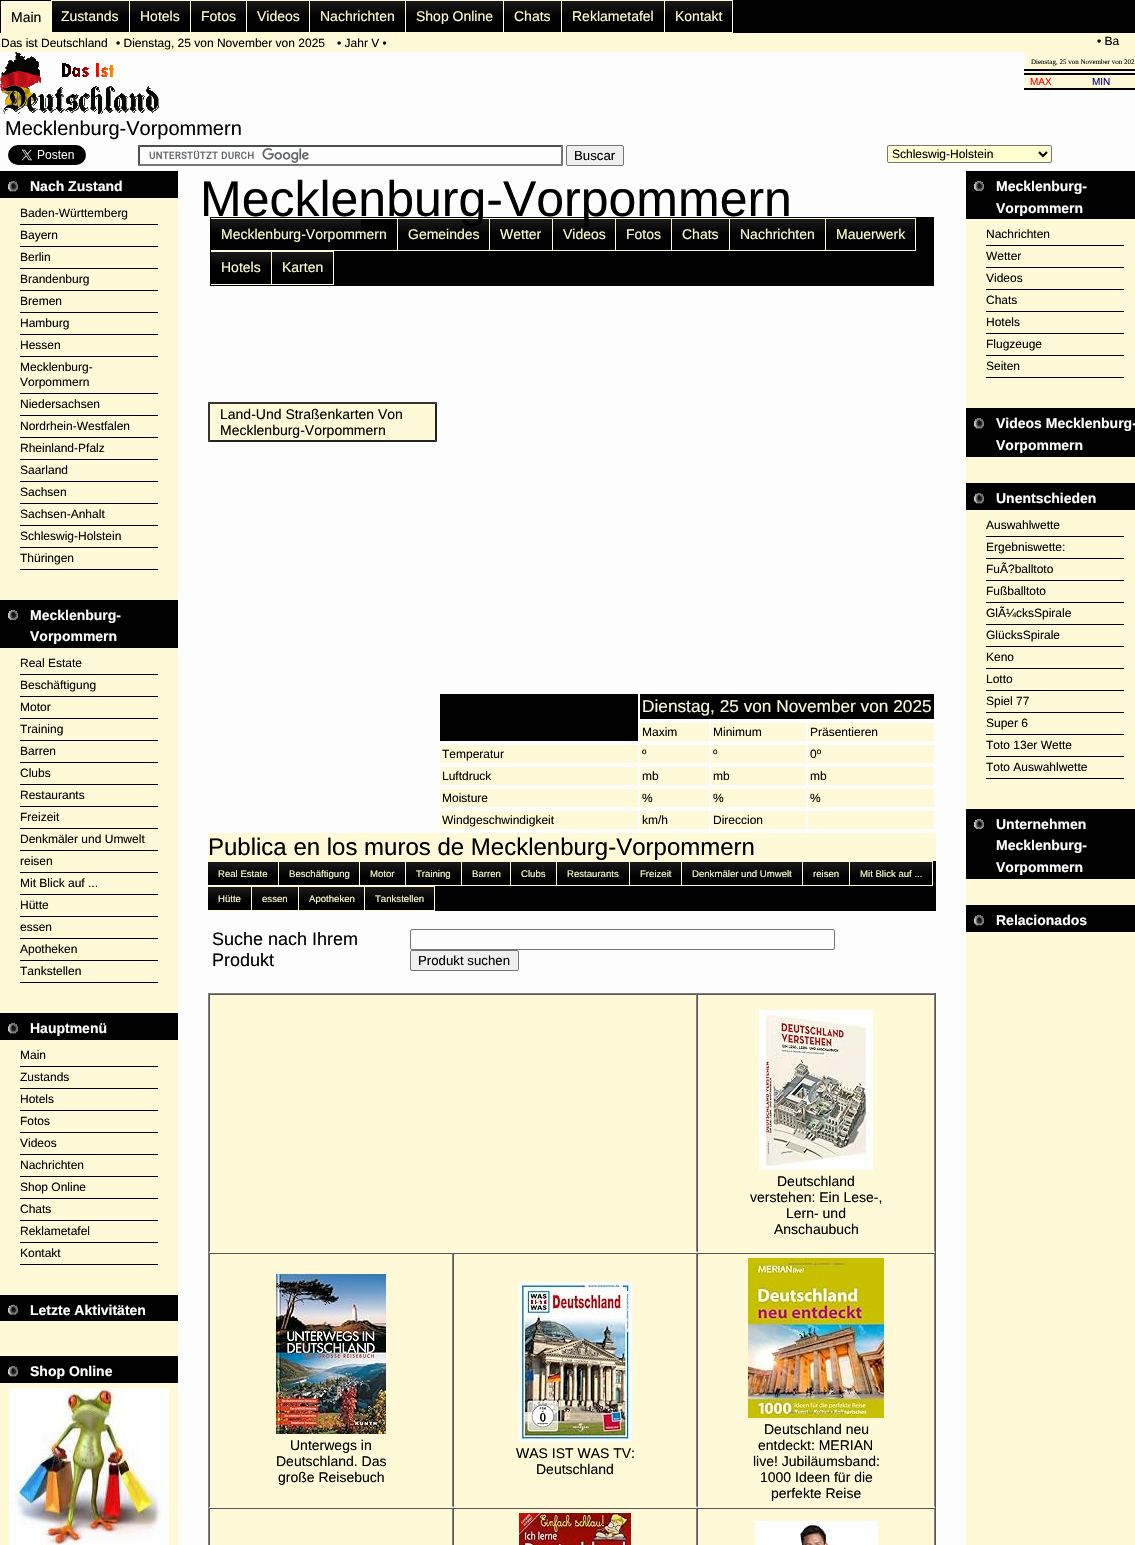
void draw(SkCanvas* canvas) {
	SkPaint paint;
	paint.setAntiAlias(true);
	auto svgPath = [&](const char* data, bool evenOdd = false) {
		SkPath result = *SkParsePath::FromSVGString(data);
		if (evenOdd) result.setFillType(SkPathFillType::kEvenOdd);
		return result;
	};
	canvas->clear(0xfffdfdfd);
	paint.setColor(0xff000000);
	canvas->drawRect(SkRect::MakeXYWH(0, 0, 1135, 33), paint);
	paint.setColor(0xfffff9d7);
	canvas->drawRect(SkRect::MakeXYWH(1, 2, 50, 31), paint);
	canvas->drawRect(SkRect::MakeXYWH(1, 1, 51, 1), paint);
	canvas->drawRect(SkRect::MakeXYWH(51, 0, 682, 1), paint);
	canvas->drawRect(SkRect::MakeXYWH(129, 0, 1, 33), paint);
	canvas->drawRect(SkRect::MakeXYWH(51, 32, 79, 1), paint);
	canvas->drawRect(SkRect::MakeXYWH(0, 33, 1135, 19), paint);
	canvas->drawRect(SkRect::MakeXYWH(51, 1, 1, 33), paint);
	SkFont f1(fontMgr->matchFamilyStyle("Liberation Sans", SkFontStyle::Normal()), 14);
	f1.setSubpixel(true);
	paint.setColor(0xff000000);
	canvas->drawString("Main", 11, 22, f1, paint);
	canvas->drawImageRect(SkImages::DeferredFromEncodedData(SkData::MakeFromFileName("img1.png")), SkRect::MakeXYWH(52, 1, 77, 13), SkSamplingOptions());
	paint.setColor(0xffffffcf);
	canvas->drawString("Zustands", 61, 21, f1, paint);
	canvas->drawImageRect(SkImages::DeferredFromEncodedData(SkData::MakeFromFileName("img2.png")), SkRect::MakeXYWH(130, 1, 60, 13), SkSamplingOptions());
	paint.setColor(0xfffff9d7);
	canvas->drawRect(SkRect::MakeXYWH(190, 0, 1, 33), paint);
	canvas->drawRect(SkRect::MakeXYWH(130, 32, 61, 1), paint);
	paint.setColor(0xffffffcf);
	canvas->drawString("Hotels", 140, 21, f1, paint);
	canvas->drawImageRect(SkImages::DeferredFromEncodedData(SkData::MakeFromFileName("img3.png")), SkRect::MakeXYWH(191, 1, 55, 13), SkSamplingOptions());
	paint.setColor(0xfffff9d7);
	canvas->drawRect(SkRect::MakeXYWH(246, 0, 1, 33), paint);
	canvas->drawRect(SkRect::MakeXYWH(191, 32, 56, 1), paint);
	paint.setColor(0xffffffcf);
	canvas->drawString("Fotos", 201, 21, f1, paint);
	canvas->drawImageRect(SkImages::DeferredFromEncodedData(SkData::MakeFromFileName("img4.png")), SkRect::MakeXYWH(247, 1, 62, 13), SkSamplingOptions());
	paint.setColor(0xfffff9d7);
	canvas->drawRect(SkRect::MakeXYWH(309, 0, 1, 33), paint);
	canvas->drawRect(SkRect::MakeXYWH(247, 32, 63, 1), paint);
	paint.setColor(0xffffffcf);
	canvas->drawString("Videos", 257, 21, f1, paint);
	canvas->drawImageRect(SkImages::DeferredFromEncodedData(SkData::MakeFromFileName("img5.png")), SkRect::MakeXYWH(310, 1, 95, 13), SkSamplingOptions());
	paint.setColor(0xfffff9d7);
	canvas->drawRect(SkRect::MakeXYWH(405, 0, 1, 33), paint);
	canvas->drawRect(SkRect::MakeXYWH(310, 32, 96, 1), paint);
	paint.setColor(0xffffffcf);
	canvas->drawString("Nachrichten", 320, 21, f1, paint);
	canvas->drawImageRect(SkImages::DeferredFromEncodedData(SkData::MakeFromFileName("img6.png")), SkRect::MakeXYWH(406, 1, 97, 13), SkSamplingOptions());
	paint.setColor(0xfffff9d7);
	canvas->drawRect(SkRect::MakeXYWH(503, 0, 1, 33), paint);
	canvas->drawRect(SkRect::MakeXYWH(406, 32, 98, 1), paint);
	paint.setColor(0xffffffcf);
	canvas->drawString("Shop Online", 416, 21, f1, paint);
	canvas->drawImageRect(SkImages::DeferredFromEncodedData(SkData::MakeFromFileName("img7.png")), SkRect::MakeXYWH(504, 1, 57, 13), SkSamplingOptions());
	paint.setColor(0xfffff9d7);
	canvas->drawRect(SkRect::MakeXYWH(561, 0, 1, 33), paint);
	canvas->drawRect(SkRect::MakeXYWH(504, 32, 58, 1), paint);
	paint.setColor(0xffffffcf);
	canvas->drawString("Chats", 514, 21, f1, paint);
	canvas->drawImageRect(SkImages::DeferredFromEncodedData(SkData::MakeFromFileName("img8.png")), SkRect::MakeXYWH(562, 1, 102, 13), SkSamplingOptions());
	paint.setColor(0xfffff9d7);
	canvas->drawRect(SkRect::MakeXYWH(664, 0, 1, 33), paint);
	canvas->drawRect(SkRect::MakeXYWH(562, 32, 103, 1), paint);
	paint.setColor(0xffffffcf);
	canvas->drawString("Reklametafel", 572, 21, f1, paint);
	canvas->drawImageRect(SkImages::DeferredFromEncodedData(SkData::MakeFromFileName("img9.png")), SkRect::MakeXYWH(665, 1, 67, 13), SkSamplingOptions());
	paint.setColor(0xfffff9d7);
	canvas->drawRect(SkRect::MakeXYWH(732, 0, 1, 33), paint);
	canvas->drawRect(SkRect::MakeXYWH(665, 32, 68, 1), paint);
	paint.setColor(0xffffffcf);
	canvas->drawString("Kontakt", 675, 21, f1, paint);
	SkFont f2(fontMgr->matchFamilyStyle("Liberation Sans", SkFontStyle::Normal()), 12);
	f2.setSubpixel(true);
	paint.setColor(0xff000000);
	canvas->drawString("Das ist Deutschland", 1, 47, f2, paint);
	canvas->drawString("• Dienstag, 25 von November von 2025", 116, 47, f2, paint);
	canvas->drawString("• Jahr V •", 337, 47, f2, paint);
	canvas->drawString("• Ba", 1097, 45, f2, paint);
	canvas->drawImageRect(SkImages::DeferredFromEncodedData(SkData::MakeFromFileName("img10.png")), SkRect::MakeXYWH(0, 52, 159, 62), SkSamplingOptions());
	paint.setColor(0xfffff9d7);
	canvas->drawRect(SkRect::MakeXYWH(1025, 52, 110, 17), paint);
	paint.setColor(0xff000000);
	canvas->drawRect(SkRect::MakeXYWH(1024, 69, 111, 2), paint);
	SkFont f3(fontMgr->matchFamilyStyle("Liberation Serif", SkFontStyle::Normal()), 7);
	f3.setSubpixel(true);
	canvas->drawString("Dienstag, 25 von November von 202", 1031, 64, f3, paint);
	paint.setColor(0xfffff9d7);
	canvas->drawRect(SkRect::MakeXYWH(1025, 71, 110, 2), paint);
	canvas->drawRect(SkRect::MakeXYWH(1129, 74, 6, 15), paint);
	paint.setColor(0xff000000);
	canvas->drawRect(SkRect::MakeXYWH(1024, 73, 111, 2), paint);
	canvas->drawRect(SkRect::MakeXYWH(1024, 88, 111, 2), paint);
	paint.setColor(0xfffff9d7);
	canvas->drawRect(SkRect::MakeXYWH(1025, 75, 104, 13), paint);
	SkFont f4(fontMgr->matchFamilyStyle("Liberation Sans", SkFontStyle::Normal()), 10);
	f4.setSubpixel(true);
	paint.setColor(0xffff0000);
	canvas->drawString("MAX", 1030, 85, f4, paint);
	paint.setColor(0xff000080);
	canvas->drawString("MIN", 1092, 85, f4, paint);
	canvas->drawImageRect(SkImages::DeferredFromEncodedData(SkData::MakeFromFileName("img11.png")), SkRect::MakeXYWH(8, 145, 78, 20), SkSamplingOptions());
	canvas->drawImageRect(SkImages::DeferredFromEncodedData(SkData::MakeFromFileName("img12.png")), SkRect::MakeXYWH(149, 148, 160, 15), SkSamplingOptions());
	paint.setColor(0xff4f4f4f);
	canvas->drawPath(svgPath("M138 145H563L561 147H140Z"), paint);
	paint.setColor(0xff767676);
	canvas->drawPath(svgPath("M563 145V166L561 164V147Z"), paint);
	canvas->drawPath(svgPath("M563 166H138L140 164H561Z"), paint);
	paint.setColor(0xff4f4f4f);
	canvas->drawPath(svgPath("M138 166V145L140 147V164Z"), paint);
	paint.setColor(0xffefefef);
	canvas->drawRoundRect(SkRect::MakeXYWH(566.5, 145.5, 57, 20), 1.5, 1.5, paint);
	paint.setStroke(true);
	paint.setStrokeWidth(1);
	paint.setColor(0xff767676);
	canvas->drawRoundRect(SkRect::MakeXYWH(566.5, 145.5, 57, 20), 1.5, 1.5, paint);
	SkFont f5(fontMgr->matchFamilyStyle("Liberation Sans", SkFontStyle::Normal()), 13.25);
	f5.setSubpixel(true);
	paint.setStroke(false);
	paint.setColor(0xff000000);
	canvas->drawString("Buscar", 574, 160, f5, paint);
	paint.setColor(0xffffffcf);
	canvas->drawRoundRect(SkRect::MakeXYWH(887.5, 145.5, 164, 17), 1.5, 1.5, paint);
	paint.setStroke(true);
	paint.setColor(0xff767676);
	canvas->drawRoundRect(SkRect::MakeXYWH(887.5, 145.5, 164, 17), 1.5, 1.5, paint);
	paint.setStrokeWidth(2);
	paint.setColor(0xff000000);
	canvas->drawPath(svgPath("M1039 152L1043 156L1047 152"), paint);
	paint.setStroke(false);
	canvas->drawString("Schleswig-Holstein", 892, 158, f2, paint);
	paint.setColor(0xfffff9d7);
	canvas->drawRect(SkRect::MakeXYWH(0, 198, 178, 1347), paint);
	paint.setColor(0xff000000);
	canvas->drawRect(SkRect::MakeXYWH(0, 171, 178, 27), paint);
	canvas->drawImageRect(SkImages::DeferredFromEncodedData(SkData::MakeFromFileName("img13.png")), SkRect::MakeXYWH(8, 181, 10, 11), SkSamplingOptions());
	SkFont f6(fontMgr->matchFamilyStyle("Liberation Sans", SkFontStyle::Bold()), 14);
	f6.setSubpixel(true);
	paint.setColor(0xffffffff);
	canvas->drawString("Nach Zustand", 30, 191, f6, paint);
	paint.setColor(0xff000000);
	canvas->drawRect(SkRect::MakeXYWH(20, 224, 138, 1), paint);
	canvas->drawString("Baden-Württemberg", 20, 217, f2, paint);
	canvas->drawRect(SkRect::MakeXYWH(20, 246, 138, 1), paint);
	canvas->drawString("Bayern", 20, 239, f2, paint);
	canvas->drawRect(SkRect::MakeXYWH(20, 268, 138, 1), paint);
	canvas->drawString("Berlin", 20, 261, f2, paint);
	canvas->drawRect(SkRect::MakeXYWH(20, 290, 138, 1), paint);
	canvas->drawString("Brandenburg", 20, 283, f2, paint);
	canvas->drawRect(SkRect::MakeXYWH(20, 312, 138, 1), paint);
	canvas->drawString("Bremen", 20, 305, f2, paint);
	canvas->drawRect(SkRect::MakeXYWH(20, 334, 138, 1), paint);
	canvas->drawString("Hamburg", 20, 327, f2, paint);
	canvas->drawRect(SkRect::MakeXYWH(20, 356, 138, 1), paint);
	canvas->drawString("Hessen", 20, 349, f2, paint);
	canvas->drawRect(SkRect::MakeXYWH(20, 393, 138, 1), paint);
	canvas->drawString("Mecklenburg-", 20, 371, f2, paint);
	canvas->drawString("Vorpommern", 20, 386, f2, paint);
	canvas->drawRect(SkRect::MakeXYWH(20, 415, 138, 1), paint);
	canvas->drawString("Niedersachsen", 20, 408, f2, paint);
	canvas->drawRect(SkRect::MakeXYWH(20, 437, 138, 1), paint);
	canvas->drawString("Nordrhein-Westfalen", 20, 430, f2, paint);
	canvas->drawRect(SkRect::MakeXYWH(20, 459, 138, 1), paint);
	canvas->drawString("Rheinland-Pfalz", 20, 452, f2, paint);
	canvas->drawRect(SkRect::MakeXYWH(20, 481, 138, 1), paint);
	canvas->drawString("Saarland", 20, 474, f2, paint);
	canvas->drawRect(SkRect::MakeXYWH(20, 503, 138, 1), paint);
	canvas->drawString("Sachsen", 20, 496, f2, paint);
	canvas->drawRect(SkRect::MakeXYWH(20, 525, 138, 1), paint);
	canvas->drawString("Sachsen-Anhalt", 20, 518, f2, paint);
	canvas->drawRect(SkRect::MakeXYWH(20, 547, 138, 1), paint);
	canvas->drawString("Schleswig-Holstein", 20, 540, f2, paint);
	canvas->drawRect(SkRect::MakeXYWH(20, 569, 138, 1), paint);
	canvas->drawString("Thüringen", 20, 562, f2, paint);
	canvas->drawRect(SkRect::MakeXYWH(0, 600, 178, 48), paint);
	canvas->drawImageRect(SkImages::DeferredFromEncodedData(SkData::MakeFromFileName("img14.png")), SkRect::MakeXYWH(8, 610, 10, 10), SkSamplingOptions());
	paint.setColor(0xffffffff);
	canvas->drawString("Mecklenburg-", 30, 620, f6, paint);
	canvas->drawString("Vorpommern", 30, 641, f6, paint);
	paint.setColor(0xff000000);
	canvas->drawRect(SkRect::MakeXYWH(20, 674, 138, 1), paint);
	canvas->drawString("Real Estate", 20, 667, f2, paint);
	canvas->drawRect(SkRect::MakeXYWH(20, 696, 138, 1), paint);
	canvas->drawString("Beschäftigung", 20, 689, f2, paint);
	canvas->drawRect(SkRect::MakeXYWH(20, 718, 138, 1), paint);
	canvas->drawString("Motor", 20, 711, f2, paint);
	canvas->drawRect(SkRect::MakeXYWH(20, 740, 138, 1), paint);
	canvas->drawString("Training", 20, 733, f2, paint);
	canvas->drawRect(SkRect::MakeXYWH(20, 762, 138, 1), paint);
	canvas->drawString("Barren", 20, 755, f2, paint);
	canvas->drawRect(SkRect::MakeXYWH(20, 784, 138, 1), paint);
	canvas->drawString("Clubs", 20, 777, f2, paint);
	canvas->drawRect(SkRect::MakeXYWH(20, 806, 138, 1), paint);
	canvas->drawString("Restaurants", 20, 799, f2, paint);
	canvas->drawRect(SkRect::MakeXYWH(20, 828, 138, 1), paint);
	canvas->drawString("Freizeit", 20, 821, f2, paint);
	canvas->drawRect(SkRect::MakeXYWH(20, 850, 138, 1), paint);
	canvas->drawString("Denkmäler und Umwelt", 20, 843, f2, paint);
	canvas->drawRect(SkRect::MakeXYWH(20, 872, 138, 1), paint);
	canvas->drawString("reisen", 20, 865, f2, paint);
	canvas->drawRect(SkRect::MakeXYWH(20, 894, 138, 1), paint);
	canvas->drawString("Mit Blick auf ...", 20, 887, f2, paint);
	canvas->drawRect(SkRect::MakeXYWH(20, 916, 138, 1), paint);
	canvas->drawString("Hütte", 20, 909, f2, paint);
	canvas->drawRect(SkRect::MakeXYWH(20, 938, 138, 1), paint);
	canvas->drawString("essen", 20, 931, f2, paint);
	canvas->drawRect(SkRect::MakeXYWH(20, 960, 138, 1), paint);
	canvas->drawString("Apotheken", 20, 953, f2, paint);
	canvas->drawRect(SkRect::MakeXYWH(20, 982, 138, 1), paint);
	canvas->drawString("Tankstellen", 20, 975, f2, paint);
	canvas->drawRect(SkRect::MakeXYWH(0, 1013, 178, 27), paint);
	canvas->drawImageRect(SkImages::DeferredFromEncodedData(SkData::MakeFromFileName("img13.png")), SkRect::MakeXYWH(8, 1023, 10, 11), SkSamplingOptions());
	paint.setColor(0xffffffff);
	canvas->drawString("Hauptmenü", 30, 1033, f6, paint);
	paint.setColor(0xff000000);
	canvas->drawRect(SkRect::MakeXYWH(20, 1066, 138, 1), paint);
	canvas->drawString("Main", 20, 1059, f2, paint);
	canvas->drawRect(SkRect::MakeXYWH(20, 1088, 138, 1), paint);
	canvas->drawString("Zustands", 20, 1081, f2, paint);
	canvas->drawRect(SkRect::MakeXYWH(20, 1110, 138, 1), paint);
	canvas->drawString("Hotels", 20, 1103, f2, paint);
	canvas->drawRect(SkRect::MakeXYWH(20, 1132, 138, 1), paint);
	canvas->drawString("Fotos", 20, 1125, f2, paint);
	canvas->drawRect(SkRect::MakeXYWH(20, 1154, 138, 1), paint);
	canvas->drawString("Videos", 20, 1147, f2, paint);
	canvas->drawRect(SkRect::MakeXYWH(20, 1176, 138, 1), paint);
	canvas->drawString("Nachrichten", 20, 1169, f2, paint);
	canvas->drawRect(SkRect::MakeXYWH(20, 1198, 138, 1), paint);
	canvas->drawString("Shop Online", 20, 1191, f2, paint);
	canvas->drawRect(SkRect::MakeXYWH(20, 1220, 138, 1), paint);
	canvas->drawString("Chats", 20, 1213, f2, paint);
	canvas->drawRect(SkRect::MakeXYWH(20, 1242, 138, 1), paint);
	canvas->drawString("Reklametafel", 20, 1235, f2, paint);
	canvas->drawRect(SkRect::MakeXYWH(20, 1264, 138, 1), paint);
	canvas->drawString("Kontakt", 20, 1257, f2, paint);
	canvas->drawRect(SkRect::MakeXYWH(0, 1295, 178, 26), paint);
	canvas->drawImageRect(SkImages::DeferredFromEncodedData(SkData::MakeFromFileName("img15.png")), SkRect::MakeXYWH(8, 1304, 10, 11), SkSamplingOptions());
	paint.setColor(0xffffffff);
	canvas->drawString("Letzte Aktivitäten", 30, 1315, f6, paint);
	paint.setColor(0xff000000);
	canvas->drawRect(SkRect::MakeXYWH(0, 1356, 178, 27), paint);
	canvas->drawImageRect(SkImages::DeferredFromEncodedData(SkData::MakeFromFileName("img13.png")), SkRect::MakeXYWH(8, 1366, 10, 11), SkSamplingOptions());
	paint.setColor(0xffffffff);
	canvas->drawString("Shop Online", 30, 1376, f6, paint);
	canvas->drawImageRect(SkImages::DeferredFromEncodedData(SkData::MakeFromFileName("img16.png")), SkRect::MakeXYWH(9, 1388, 160, 157), SkSamplingOptions());
	paint.setColor(0xff000000);
	canvas->drawRect(SkRect::MakeXYWH(210, 217, 724, 69), paint);
	canvas->drawImageRect(SkImages::DeferredFromEncodedData(SkData::MakeFromFileName("img17.png")), SkRect::MakeXYWH(211, 219, 150, 13), SkSamplingOptions());
	paint.setColor(0xfffff9d7);
	canvas->drawRect(SkRect::MakeXYWH(211, 218, 705, 1), paint);
	canvas->drawRect(SkRect::MakeXYWH(397, 218, 1, 33), paint);
	canvas->drawImageRect(SkImages::DeferredFromEncodedData(SkData::MakeFromFileName("img18.png")), SkRect::MakeXYWH(398, 219, 91, 13), SkSamplingOptions());
	canvas->drawRect(SkRect::MakeXYWH(489, 218, 1, 33), paint);
	canvas->drawImageRect(SkImages::DeferredFromEncodedData(SkData::MakeFromFileName("img19.png")), SkRect::MakeXYWH(490, 219, 62, 13), SkSamplingOptions());
	canvas->drawRect(SkRect::MakeXYWH(552, 218, 1, 33), paint);
	canvas->drawImageRect(SkImages::DeferredFromEncodedData(SkData::MakeFromFileName("img4.png")), SkRect::MakeXYWH(553, 219, 62, 13), SkSamplingOptions());
	canvas->drawRect(SkRect::MakeXYWH(615, 218, 1, 33), paint);
	canvas->drawImageRect(SkImages::DeferredFromEncodedData(SkData::MakeFromFileName("img3.png")), SkRect::MakeXYWH(616, 219, 55, 13), SkSamplingOptions());
	canvas->drawRect(SkRect::MakeXYWH(671, 218, 1, 33), paint);
	canvas->drawImageRect(SkImages::DeferredFromEncodedData(SkData::MakeFromFileName("img7.png")), SkRect::MakeXYWH(672, 219, 57, 13), SkSamplingOptions());
	canvas->drawRect(SkRect::MakeXYWH(729, 218, 1, 33), paint);
	canvas->drawImageRect(SkImages::DeferredFromEncodedData(SkData::MakeFromFileName("img5.png")), SkRect::MakeXYWH(730, 219, 95, 13), SkSamplingOptions());
	SkFont f7(fontMgr->matchFamilyStyle("Liberation Sans", SkFontStyle::Normal()), 50);
	f7.setSubpixel(true);
	paint.setColor(0xff000000);
	canvas->drawString("Mecklenburg-Vorpommern", 200, 216, f7, paint);
	paint.setColor(0xfffff9d7);
	canvas->drawRect(SkRect::MakeXYWH(211, 250, 187, 1), paint);
	paint.setColor(0xffffffcf);
	canvas->drawString("Mecklenburg-Vorpommern", 221, 239, f1, paint);
	paint.setColor(0xfffff9d7);
	canvas->drawRect(SkRect::MakeXYWH(398, 250, 92, 1), paint);
	paint.setColor(0xffffffcf);
	canvas->drawString("Gemeindes", 408, 239, f1, paint);
	paint.setColor(0xfffff9d7);
	canvas->drawRect(SkRect::MakeXYWH(490, 250, 63, 1), paint);
	paint.setColor(0xffffffcf);
	canvas->drawString("Wetter", 500, 239, f1, paint);
	paint.setColor(0xfffff9d7);
	canvas->drawRect(SkRect::MakeXYWH(553, 250, 63, 1), paint);
	paint.setColor(0xffffffcf);
	canvas->drawString("Videos", 563, 239, f1, paint);
	paint.setColor(0xfffff9d7);
	canvas->drawRect(SkRect::MakeXYWH(616, 250, 56, 1), paint);
	paint.setColor(0xffffffcf);
	canvas->drawString("Fotos", 626, 239, f1, paint);
	paint.setColor(0xfffff9d7);
	canvas->drawRect(SkRect::MakeXYWH(672, 250, 58, 1), paint);
	paint.setColor(0xffffffcf);
	canvas->drawString("Chats", 682, 239, f1, paint);
	paint.setColor(0xfffff9d7);
	canvas->drawRect(SkRect::MakeXYWH(825, 218, 1, 33), paint);
	canvas->drawRect(SkRect::MakeXYWH(730, 250, 96, 1), paint);
	paint.setColor(0xffffffcf);
	canvas->drawString("Nachrichten", 740, 239, f1, paint);
	canvas->drawImageRect(SkImages::DeferredFromEncodedData(SkData::MakeFromFileName("img20.png")), SkRect::MakeXYWH(826, 219, 89, 13), SkSamplingOptions());
	paint.setColor(0xfffff9d7);
	canvas->drawRect(SkRect::MakeXYWH(915, 218, 1, 33), paint);
	canvas->drawRect(SkRect::MakeXYWH(826, 250, 90, 1), paint);
	paint.setColor(0xffffffcf);
	canvas->drawString("Mauerwerk", 836, 239, f1, paint);
	canvas->drawImageRect(SkImages::DeferredFromEncodedData(SkData::MakeFromFileName("img2.png")), SkRect::MakeXYWH(211, 252, 60, 13), SkSamplingOptions());
	paint.setColor(0xfffff9d7);
	canvas->drawRect(SkRect::MakeXYWH(211, 251, 123, 1), paint);
	canvas->drawRect(SkRect::MakeXYWH(271, 251, 1, 34), paint);
	canvas->drawRect(SkRect::MakeXYWH(211, 284, 61, 1), paint);
	paint.setColor(0xffffffcf);
	canvas->drawString("Hotels", 221, 272, f1, paint);
	canvas->drawImageRect(SkImages::DeferredFromEncodedData(SkData::MakeFromFileName("img21.png")), SkRect::MakeXYWH(272, 252, 61, 13), SkSamplingOptions());
	paint.setColor(0xfffff9d7);
	canvas->drawRect(SkRect::MakeXYWH(333, 251, 1, 34), paint);
	canvas->drawRect(SkRect::MakeXYWH(272, 284, 62, 1), paint);
	paint.setColor(0xffffffcf);
	canvas->drawString("Karten", 282, 272, f1, paint);
	paint.setColor(0xfffff9d7);
	canvas->drawRect(SkRect::MakeXYWH(208, 402, 229, 40), paint);
	paint.setColor(0xff333333);
	canvas->drawPath(svgPath("M208 402H437L435 404H210Z"), paint);
	paint.setColor(0xff222222);
	canvas->drawPath(svgPath("M437 402V442L435 440V404Z"), paint);
	canvas->drawPath(svgPath("M437 442H208L210 440H435Z"), paint);
	paint.setColor(0xff333333);
	canvas->drawPath(svgPath("M208 442V402L210 404V440Z"), paint);
	paint.setColor(0xff000000);
	canvas->drawString("Land-Und Straßenkarten Von", 220, 419, f1, paint);
	canvas->drawString("Mecklenburg-Vorpommern", 220, 435, f1, paint);
	canvas->drawRect(SkRect::MakeXYWH(440, 694, 198, 47), paint);
	canvas->drawRect(SkRect::MakeXYWH(640, 694, 294, 25), paint);
	SkFont f8(fontMgr->matchFamilyStyle("Liberation Sans", SkFontStyle::Normal()), 17.25);
	f8.setSubpixel(true);
	paint.setColor(0xfffff9d7);
	canvas->drawString("Dienstag, 25 von November von 2025", 642, 712, f8, paint);
	canvas->drawRect(SkRect::MakeXYWH(640, 723, 69, 18), paint);
	paint.setColor(0xff000000);
	canvas->drawString("Maxim", 642, 736, f2, paint);
	paint.setColor(0xfffff9d7);
	canvas->drawRect(SkRect::MakeXYWH(711, 723, 95, 18), paint);
	paint.setColor(0xff000000);
	canvas->drawString("Minimum", 713, 736, f2, paint);
	paint.setColor(0xfffff9d7);
	canvas->drawRect(SkRect::MakeXYWH(808, 723, 126, 18), paint);
	paint.setColor(0xff000000);
	canvas->drawString("Präsentieren", 810, 736, f2, paint);
	paint.setColor(0xfffff9d7);
	canvas->drawRect(SkRect::MakeXYWH(440, 745, 198, 18), paint);
	paint.setColor(0xff000000);
	canvas->drawString("Temperatur", 442, 758, f2, paint);
	paint.setColor(0xfffff9d7);
	canvas->drawRect(SkRect::MakeXYWH(640, 745, 69, 18), paint);
	paint.setColor(0xff000000);
	canvas->drawString("º", 642, 758, f2, paint);
	paint.setColor(0xfffff9d7);
	canvas->drawRect(SkRect::MakeXYWH(711, 745, 95, 18), paint);
	paint.setColor(0xff000000);
	canvas->drawString("º", 713, 758, f2, paint);
	paint.setColor(0xfffff9d7);
	canvas->drawRect(SkRect::MakeXYWH(808, 745, 126, 18), paint);
	paint.setColor(0xff000000);
	canvas->drawString("0º", 810, 758, f2, paint);
	paint.setColor(0xfffff9d7);
	canvas->drawRect(SkRect::MakeXYWH(440, 767, 198, 18), paint);
	paint.setColor(0xff000000);
	canvas->drawString("Luftdruck", 442, 780, f2, paint);
	paint.setColor(0xfffff9d7);
	canvas->drawRect(SkRect::MakeXYWH(640, 767, 69, 18), paint);
	paint.setColor(0xff000000);
	canvas->drawString("mb", 642, 780, f2, paint);
	paint.setColor(0xfffff9d7);
	canvas->drawRect(SkRect::MakeXYWH(711, 767, 95, 18), paint);
	paint.setColor(0xff000000);
	canvas->drawString("mb", 713, 780, f2, paint);
	paint.setColor(0xfffff9d7);
	canvas->drawRect(SkRect::MakeXYWH(808, 767, 126, 18), paint);
	paint.setColor(0xff000000);
	canvas->drawString("mb", 810, 780, f2, paint);
	paint.setColor(0xfffff9d7);
	canvas->drawRect(SkRect::MakeXYWH(440, 789, 198, 18), paint);
	paint.setColor(0xff000000);
	canvas->drawString("Moisture", 442, 802, f2, paint);
	paint.setColor(0xfffff9d7);
	canvas->drawRect(SkRect::MakeXYWH(640, 789, 69, 18), paint);
	paint.setColor(0xff000000);
	canvas->drawString("%", 642, 802, f2, paint);
	paint.setColor(0xfffff9d7);
	canvas->drawRect(SkRect::MakeXYWH(711, 789, 95, 18), paint);
	paint.setColor(0xff000000);
	canvas->drawString("%", 713, 802, f2, paint);
	paint.setColor(0xfffff9d7);
	canvas->drawRect(SkRect::MakeXYWH(808, 789, 126, 18), paint);
	paint.setColor(0xff000000);
	canvas->drawString("%", 810, 802, f2, paint);
	paint.setColor(0xfffff9d7);
	canvas->drawRect(SkRect::MakeXYWH(440, 811, 198, 18), paint);
	paint.setColor(0xff000000);
	canvas->drawString("Windgeschwindigkeit", 442, 824, f2, paint);
	paint.setColor(0xfffff9d7);
	canvas->drawRect(SkRect::MakeXYWH(640, 811, 69, 18), paint);
	paint.setColor(0xff000000);
	canvas->drawString("km/h", 642, 824, f2, paint);
	paint.setColor(0xfffff9d7);
	canvas->drawRect(SkRect::MakeXYWH(711, 811, 95, 18), paint);
	paint.setColor(0xff000000);
	canvas->drawString("Direccion", 713, 824, f2, paint);
	paint.setColor(0xfffff9d7);
	canvas->drawRect(SkRect::MakeXYWH(808, 811, 126, 18), paint);
	canvas->drawRect(SkRect::MakeXYWH(208, 833, 728, 28), paint);
	SkFont f9(fontMgr->matchFamilyStyle("Liberation Sans", SkFontStyle::Normal()), 24);
	f9.setSubpixel(true);
	paint.setColor(0xff000000);
	canvas->drawString("Publica en los muros de Mecklenburg-Vorpommern", 208, 855, f9, paint);
	canvas->drawRect(SkRect::MakeXYWH(208, 861, 728, 50), paint);
	canvas->drawImageRect(SkImages::DeferredFromEncodedData(SkData::MakeFromFileName("img22.png")), SkRect::MakeXYWH(208, 862, 70, 13), SkSamplingOptions());
	paint.setColor(0xfffff9d7);
	canvas->drawRect(SkRect::MakeXYWH(208, 861, 725, 1), paint);
	canvas->drawRect(SkRect::MakeXYWH(278, 861, 1, 25), paint);
	canvas->drawRect(SkRect::MakeXYWH(208, 885, 71, 1), paint);
	SkFont f10(fontMgr->matchFamilyStyle("Liberation Sans", SkFontStyle::Normal()), 9.6);
	f10.setSubpixel(true);
	paint.setColor(0xffffffcf);
	canvas->drawString("Real Estate", 218, 877, f10, paint);
	canvas->drawImageRect(SkImages::DeferredFromEncodedData(SkData::MakeFromFileName("img23.png")), SkRect::MakeXYWH(279, 862, 80, 13), SkSamplingOptions());
	paint.setColor(0xfffff9d7);
	canvas->drawRect(SkRect::MakeXYWH(359, 861, 1, 25), paint);
	canvas->drawRect(SkRect::MakeXYWH(279, 885, 81, 1), paint);
	paint.setColor(0xffffffcf);
	canvas->drawString("Beschäftigung", 289, 877, f10, paint);
	canvas->drawImageRect(SkImages::DeferredFromEncodedData(SkData::MakeFromFileName("img24.png")), SkRect::MakeXYWH(360, 862, 45, 13), SkSamplingOptions());
	paint.setColor(0xfffff9d7);
	canvas->drawRect(SkRect::MakeXYWH(405, 861, 1, 25), paint);
	canvas->drawRect(SkRect::MakeXYWH(360, 885, 46, 1), paint);
	paint.setColor(0xffffffcf);
	canvas->drawString("Motor", 370, 877, f10, paint);
	canvas->drawImageRect(SkImages::DeferredFromEncodedData(SkData::MakeFromFileName("img25.png")), SkRect::MakeXYWH(406, 862, 55, 13), SkSamplingOptions());
	paint.setColor(0xfffff9d7);
	canvas->drawRect(SkRect::MakeXYWH(461, 861, 1, 25), paint);
	canvas->drawRect(SkRect::MakeXYWH(406, 885, 56, 1), paint);
	paint.setColor(0xffffffcf);
	canvas->drawString("Training", 416, 877, f10, paint);
	canvas->drawImageRect(SkImages::DeferredFromEncodedData(SkData::MakeFromFileName("img26.png")), SkRect::MakeXYWH(462, 862, 48, 13), SkSamplingOptions());
	paint.setColor(0xfffff9d7);
	canvas->drawRect(SkRect::MakeXYWH(510, 861, 1, 25), paint);
	canvas->drawRect(SkRect::MakeXYWH(462, 885, 49, 1), paint);
	paint.setColor(0xffffffcf);
	canvas->drawString("Barren", 472, 877, f10, paint);
	canvas->drawImageRect(SkImages::DeferredFromEncodedData(SkData::MakeFromFileName("img24.png")), SkRect::MakeXYWH(511, 862, 45, 13), SkSamplingOptions());
	paint.setColor(0xfffff9d7);
	canvas->drawRect(SkRect::MakeXYWH(556, 861, 1, 25), paint);
	canvas->drawRect(SkRect::MakeXYWH(511, 885, 46, 1), paint);
	paint.setColor(0xffffffcf);
	canvas->drawString("Clubs", 521, 877, f10, paint);
	canvas->drawImageRect(SkImages::DeferredFromEncodedData(SkData::MakeFromFileName("img27.png")), SkRect::MakeXYWH(557, 862, 72, 13), SkSamplingOptions());
	paint.setColor(0xfffff9d7);
	canvas->drawRect(SkRect::MakeXYWH(629, 861, 1, 25), paint);
	canvas->drawRect(SkRect::MakeXYWH(557, 885, 73, 1), paint);
	paint.setColor(0xffffffcf);
	canvas->drawString("Restaurants", 567, 877, f10, paint);
	canvas->drawImageRect(SkImages::DeferredFromEncodedData(SkData::MakeFromFileName("img28.png")), SkRect::MakeXYWH(630, 862, 51, 13), SkSamplingOptions());
	paint.setColor(0xfffff9d7);
	canvas->drawRect(SkRect::MakeXYWH(681, 861, 1, 25), paint);
	canvas->drawRect(SkRect::MakeXYWH(630, 885, 52, 1), paint);
	paint.setColor(0xffffffcf);
	canvas->drawString("Freizeit", 640, 877, f10, paint);
	canvas->drawImageRect(SkImages::DeferredFromEncodedData(SkData::MakeFromFileName("img29.png")), SkRect::MakeXYWH(682, 862, 120, 13), SkSamplingOptions());
	paint.setColor(0xfffff9d7);
	canvas->drawRect(SkRect::MakeXYWH(802, 861, 1, 25), paint);
	canvas->drawRect(SkRect::MakeXYWH(682, 885, 121, 1), paint);
	paint.setColor(0xffffffcf);
	canvas->drawString("Denkmäler und Umwelt", 692, 877, f10, paint);
	canvas->drawImageRect(SkImages::DeferredFromEncodedData(SkData::MakeFromFileName("img30.png")), SkRect::MakeXYWH(803, 862, 46, 13), SkSamplingOptions());
	paint.setColor(0xfffff9d7);
	canvas->drawRect(SkRect::MakeXYWH(849, 861, 1, 25), paint);
	canvas->drawRect(SkRect::MakeXYWH(803, 885, 47, 1), paint);
	paint.setColor(0xffffffcf);
	canvas->drawString("reisen", 813, 877, f10, paint);
	canvas->drawImageRect(SkImages::DeferredFromEncodedData(SkData::MakeFromFileName("img31.png")), SkRect::MakeXYWH(850, 862, 82, 13), SkSamplingOptions());
	paint.setColor(0xfffff9d7);
	canvas->drawRect(SkRect::MakeXYWH(932, 861, 1, 25), paint);
	canvas->drawRect(SkRect::MakeXYWH(850, 885, 83, 1), paint);
	paint.setColor(0xffffffcf);
	canvas->drawString("Mit Blick auf ...", 860, 877, f10, paint);
	canvas->drawImageRect(SkImages::DeferredFromEncodedData(SkData::MakeFromFileName("img32.png")), SkRect::MakeXYWH(208, 887, 43, 13), SkSamplingOptions());
	paint.setColor(0xfffff9d7);
	canvas->drawRect(SkRect::MakeXYWH(208, 886, 227, 1), paint);
	canvas->drawRect(SkRect::MakeXYWH(251, 886, 1, 25), paint);
	canvas->drawRect(SkRect::MakeXYWH(208, 910, 44, 1), paint);
	paint.setColor(0xffffffcf);
	canvas->drawString("Hütte", 218, 902, f10, paint);
	canvas->drawImageRect(SkImages::DeferredFromEncodedData(SkData::MakeFromFileName("img33.png")), SkRect::MakeXYWH(252, 887, 46, 13), SkSamplingOptions());
	paint.setColor(0xfffff9d7);
	canvas->drawRect(SkRect::MakeXYWH(298, 886, 1, 25), paint);
	canvas->drawRect(SkRect::MakeXYWH(252, 910, 47, 1), paint);
	paint.setColor(0xffffffcf);
	canvas->drawString("essen", 262, 902, f10, paint);
	canvas->drawImageRect(SkImages::DeferredFromEncodedData(SkData::MakeFromFileName("img34.png")), SkRect::MakeXYWH(299, 887, 65, 13), SkSamplingOptions());
	paint.setColor(0xfffff9d7);
	canvas->drawRect(SkRect::MakeXYWH(364, 886, 1, 25), paint);
	canvas->drawRect(SkRect::MakeXYWH(299, 910, 66, 1), paint);
	paint.setColor(0xffffffcf);
	canvas->drawString("Apotheken", 309, 902, f10, paint);
	canvas->drawImageRect(SkImages::DeferredFromEncodedData(SkData::MakeFromFileName("img35.png")), SkRect::MakeXYWH(365, 887, 69, 13), SkSamplingOptions());
	paint.setColor(0xfffff9d7);
	canvas->drawRect(SkRect::MakeXYWH(434, 886, 1, 25), paint);
	canvas->drawRect(SkRect::MakeXYWH(365, 910, 70, 1), paint);
	paint.setColor(0xffffffcf);
	canvas->drawString("Tankstellen", 375, 902, f10, paint);
	SkFont f11(fontMgr->matchFamilyStyle("Liberation Sans", SkFontStyle::Normal()), 18);
	f11.setSubpixel(true);
	paint.setColor(0xff000000);
	canvas->drawString("Suche nach Ihrem", 212, 945, f11, paint);
	canvas->drawString("Produkt", 212, 966, f11, paint);
	paint.setStroke(true);
	paint.setStrokeWidth(1);
	paint.setColor(0xff767676);
	canvas->drawRoundRect(SkRect::MakeXYWH(410.5, 929.5, 424, 20), 1.5, 1.5, paint);
	paint.setStroke(false);
	paint.setColor(0xffefefef);
	canvas->drawRoundRect(SkRect::MakeXYWH(410.5, 950.5, 108, 20), 1.5, 1.5, paint);
	paint.setStroke(true);
	paint.setColor(0xff767676);
	canvas->drawRoundRect(SkRect::MakeXYWH(410.5, 950.5, 108, 20), 1.5, 1.5, paint);
	paint.setStroke(false);
	paint.setColor(0xff000000);
	canvas->drawString("Produkt suchen", 418, 965, f5, paint);
	paint.setColor(0xfffff9d7);
	canvas->drawRect(SkRect::MakeXYWH(209, 995, 726, 550), paint);
	paint.setColor(0xff808080);
	canvas->drawRect(SkRect::MakeXYWH(208, 993, 728, 1), paint);
	paint.setColor(0xff555555);
	canvas->drawRect(SkRect::MakeXYWH(935, 993, 1, 552), paint);
	paint.setColor(0xff808080);
	canvas->drawRect(SkRect::MakeXYWH(208, 993, 1, 552), paint);
	paint.setColor(0xff555555);
	canvas->drawRect(SkRect::MakeXYWH(209, 994, 726, 1), paint);
	paint.setColor(0xff808080);
	canvas->drawPath(svgPath("M697 994V1253L696 1251V995Z"), paint);
	paint.setColor(0xfffff9d7);
	canvas->drawPath(svgPath("M697 1253H209L210 1251H696Z"), paint);
	paint.setColor(0xff555555);
	canvas->drawPath(svgPath("M209 1253V994L210 995V1251Z"), paint);
	paint.setColor(0xff808080);
	canvas->drawPath(svgPath("M935 994V1253L934 1251V995Z"), paint);
	paint.setColor(0xfffff9d7);
	canvas->drawPath(svgPath("M935 1253H697L698 1251H934Z"), paint);
	paint.setColor(0xff555555);
	canvas->drawPath(svgPath("M697 1253V994L698 995V1251Z"), paint);
	canvas->drawImageRect(SkImages::DeferredFromEncodedData(SkData::MakeFromFileName("img36.png")), SkRect::MakeXYWH(759, 1010, 114, 160), SkSamplingOptions());
	paint.setColor(0xff000000);
	canvas->drawString("Deutschland", 777, 1186, f1, paint);
	canvas->drawString("verstehen: Ein Lese-,", 750, 1202, f1, paint);
	canvas->drawString("Lern- und", 786, 1218, f1, paint);
	canvas->drawString("Anschaubuch", 774, 1234, f1, paint);
	paint.setColor(0xff555555);
	canvas->drawRect(SkRect::MakeXYWH(209, 1253, 726, 1), paint);
	paint.setColor(0xff808080);
	canvas->drawPath(svgPath("M453 1253V1508L452 1506V1254Z"), paint);
	paint.setColor(0xfffff9d7);
	canvas->drawPath(svgPath("M453 1508H209L210 1506H452Z"), paint);
	paint.setColor(0xff555555);
	canvas->drawPath(svgPath("M209 1508V1253L210 1254V1506Z"), paint);
	canvas->drawImageRect(SkImages::DeferredFromEncodedData(SkData::MakeFromFileName("img37.png")), SkRect::MakeXYWH(276, 1274, 110, 160), SkSamplingOptions());
	paint.setColor(0xff000000);
	canvas->drawString("Unterwegs in", 290, 1450, f1, paint);
	canvas->drawString("Deutschland. Das", 276, 1466, f1, paint);
	canvas->drawString("große Reisebuch", 278, 1482, f1, paint);
	paint.setColor(0xff808080);
	canvas->drawPath(svgPath("M697 1253V1508L696 1506V1254Z"), paint);
	paint.setColor(0xfffff9d7);
	canvas->drawPath(svgPath("M697 1508H453L454 1506H696Z"), paint);
	paint.setColor(0xff555555);
	canvas->drawPath(svgPath("M453 1508V1253L454 1254V1506Z"), paint);
	canvas->drawImageRect(SkImages::DeferredFromEncodedData(SkData::MakeFromFileName("img38.png")), SkRect::MakeXYWH(519, 1282, 113, 160), SkSamplingOptions());
	paint.setColor(0xff000000);
	canvas->drawString("WAS IST WAS TV:", 516, 1458, f1, paint);
	canvas->drawString("Deutschland", 536, 1474, f1, paint);
	paint.setColor(0xff808080);
	canvas->drawPath(svgPath("M935 1253V1508L934 1506V1254Z"), paint);
	paint.setColor(0xfffff9d7);
	canvas->drawPath(svgPath("M935 1508H697L698 1506H934Z"), paint);
	paint.setColor(0xff555555);
	canvas->drawPath(svgPath("M697 1508V1253L698 1254V1506Z"), paint);
	canvas->drawImageRect(SkImages::DeferredFromEncodedData(SkData::MakeFromFileName("img39.png")), SkRect::MakeXYWH(748, 1258, 136, 160), SkSamplingOptions());
	paint.setColor(0xff000000);
	canvas->drawString("Deutschland neu", 764, 1434, f1, paint);
	canvas->drawString("entdeckt: MERIAN", 758, 1450, f1, paint);
	canvas->drawString("live! Jubiläumsband:", 753, 1466, f1, paint);
	canvas->drawString("1000 Ideen für die", 760, 1482, f1, paint);
	canvas->drawString("perfekte Reise", 771, 1498, f1, paint);
	paint.setColor(0xff555555);
	canvas->drawRect(SkRect::MakeXYWH(209, 1508, 726, 1), paint);
	paint.setColor(0xff808080);
	canvas->drawPath(svgPath("M453 1508V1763L452 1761V1509Z"), paint);
	paint.setColor(0xff555555);
	canvas->drawPath(svgPath("M209 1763V1508L210 1509V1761Z"), paint);
	paint.setColor(0xff808080);
	canvas->drawPath(svgPath("M697 1508V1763L696 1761V1509Z"), paint);
	paint.setColor(0xff555555);
	canvas->drawPath(svgPath("M453 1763V1508L454 1509V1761Z"), paint);
	canvas->drawImageRect(SkImages::DeferredFromEncodedData(SkData::MakeFromFileName("img40.png")), SkRect::MakeXYWH(519, 1513, 112, 32), SkSamplingOptions());
	paint.setColor(0xff808080);
	canvas->drawPath(svgPath("M935 1508V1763L934 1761V1509Z"), paint);
	paint.setColor(0xff555555);
	canvas->drawPath(svgPath("M697 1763V1508L698 1509V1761Z"), paint);
	canvas->drawImageRect(SkImages::DeferredFromEncodedData(SkData::MakeFromFileName("img41.png")), SkRect::MakeXYWH(755, 1521, 123, 24), SkSamplingOptions());
	paint.setColor(0xfffff9d7);
	canvas->drawRect(SkRect::MakeXYWH(966, 219, 169, 1326), paint);
	paint.setColor(0xff000000);
	canvas->drawRect(SkRect::MakeXYWH(966, 171, 169, 48), paint);
	canvas->drawImageRect(SkImages::DeferredFromEncodedData(SkData::MakeFromFileName("img14.png")), SkRect::MakeXYWH(974, 181, 10, 10), SkSamplingOptions());
	paint.setColor(0xffffffff);
	canvas->drawString("Mecklenburg-", 996, 191, f6, paint);
	canvas->drawString("Vorpommern", 996, 213, f6, paint);
	paint.setColor(0xff000000);
	canvas->drawRect(SkRect::MakeXYWH(986, 245, 138, 1), paint);
	canvas->drawString("Nachrichten", 986, 238, f2, paint);
	canvas->drawRect(SkRect::MakeXYWH(986, 267, 138, 1), paint);
	canvas->drawString("Wetter", 986, 260, f2, paint);
	canvas->drawRect(SkRect::MakeXYWH(986, 289, 138, 1), paint);
	canvas->drawString("Videos", 986, 282, f2, paint);
	canvas->drawRect(SkRect::MakeXYWH(986, 311, 138, 1), paint);
	canvas->drawString("Chats", 986, 304, f2, paint);
	canvas->drawRect(SkRect::MakeXYWH(986, 333, 138, 1), paint);
	canvas->drawString("Hotels", 986, 326, f2, paint);
	canvas->drawRect(SkRect::MakeXYWH(986, 355, 138, 1), paint);
	canvas->drawString("Flugzeuge", 986, 348, f2, paint);
	canvas->drawRect(SkRect::MakeXYWH(986, 377, 138, 1), paint);
	canvas->drawString("Seiten", 986, 370, f2, paint);
	canvas->drawRect(SkRect::MakeXYWH(966, 408, 169, 49), paint);
	canvas->drawImageRect(SkImages::DeferredFromEncodedData(SkData::MakeFromFileName("img42.png")), SkRect::MakeXYWH(974, 418, 10, 11), SkSamplingOptions());
	paint.setColor(0xffffffff);
	canvas->drawString("Videos Mecklenburg-", 996, 428, f6, paint);
	canvas->drawString("Vorpommern", 996, 450, f6, paint);
	paint.setColor(0xff000000);
	canvas->drawRect(SkRect::MakeXYWH(966, 483, 169, 27), paint);
	canvas->drawImageRect(SkImages::DeferredFromEncodedData(SkData::MakeFromFileName("img13.png")), SkRect::MakeXYWH(974, 493, 10, 11), SkSamplingOptions());
	paint.setColor(0xffffffff);
	canvas->drawString("Unentschieden", 996, 503, f6, paint);
	paint.setColor(0xff000000);
	canvas->drawRect(SkRect::MakeXYWH(986, 536, 138, 1), paint);
	canvas->drawString("Auswahlwette", 986, 529, f2, paint);
	canvas->drawRect(SkRect::MakeXYWH(986, 558, 138, 1), paint);
	canvas->drawString("Ergebniswette:", 986, 551, f2, paint);
	canvas->drawRect(SkRect::MakeXYWH(986, 580, 138, 1), paint);
	canvas->drawString("FuÃ?balltoto", 986, 573, f2, paint);
	canvas->drawRect(SkRect::MakeXYWH(986, 602, 138, 1), paint);
	canvas->drawString("Fußballtoto", 986, 595, f2, paint);
	canvas->drawRect(SkRect::MakeXYWH(986, 624, 138, 1), paint);
	canvas->drawString("GlÃ¼cksSpirale", 986, 617, f2, paint);
	canvas->drawRect(SkRect::MakeXYWH(986, 646, 138, 1), paint);
	canvas->drawString("GlücksSpirale", 986, 639, f2, paint);
	canvas->drawRect(SkRect::MakeXYWH(986, 668, 138, 1), paint);
	canvas->drawString("Keno", 986, 661, f2, paint);
	canvas->drawRect(SkRect::MakeXYWH(986, 690, 138, 1), paint);
	canvas->drawString("Lotto", 986, 683, f2, paint);
	canvas->drawRect(SkRect::MakeXYWH(986, 712, 138, 1), paint);
	canvas->drawString("Spiel 77", 986, 705, f2, paint);
	canvas->drawRect(SkRect::MakeXYWH(986, 734, 138, 1), paint);
	canvas->drawString("Super 6", 986, 727, f2, paint);
	canvas->drawRect(SkRect::MakeXYWH(986, 756, 138, 1), paint);
	canvas->drawString("Toto 13er Wette", 986, 749, f2, paint);
	canvas->drawRect(SkRect::MakeXYWH(986, 778, 138, 1), paint);
	canvas->drawString("Toto Auswahlwette", 986, 771, f2, paint);
	canvas->drawRect(SkRect::MakeXYWH(966, 809, 169, 70), paint);
	canvas->drawImageRect(SkImages::DeferredFromEncodedData(SkData::MakeFromFileName("img43.png")), SkRect::MakeXYWH(974, 819, 10, 10), SkSamplingOptions());
	paint.setColor(0xffffffff);
	canvas->drawString("Unternehmen", 996, 829, f6, paint);
	canvas->drawString("Mecklenburg-", 996, 850, f6, paint);
	canvas->drawString("Vorpommern", 996, 872, f6, paint);
	paint.setColor(0xff000000);
	canvas->drawRect(SkRect::MakeXYWH(966, 905, 169, 27), paint);
	canvas->drawImageRect(SkImages::DeferredFromEncodedData(SkData::MakeFromFileName("img13.png")), SkRect::MakeXYWH(974, 915, 10, 11), SkSamplingOptions());
	paint.setColor(0xffffffff);
	canvas->drawString("Relacionados", 996, 925, f6, paint);
	SkFont f12(fontMgr->matchFamilyStyle("Liberation Sans", SkFontStyle::Normal()), 20);
	f12.setSubpixel(true);
	paint.setColor(0xff000000);
	canvas->drawString("Mecklenburg-Vorpommern", 5, 135, f12, paint);
}
